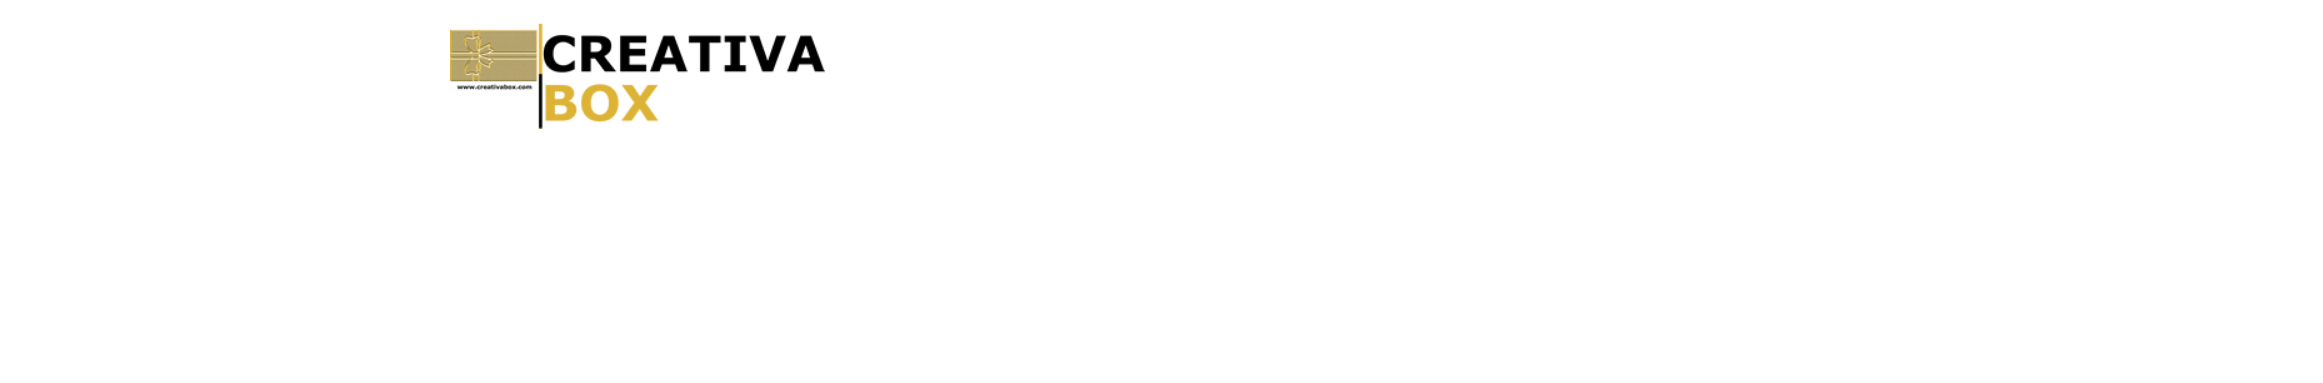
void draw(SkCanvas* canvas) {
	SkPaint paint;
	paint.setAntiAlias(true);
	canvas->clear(0xffffffff);
	canvas->drawImageRect(SkImages::DeferredFromEncodedData(SkData::MakeFromFileName("img1.png")), SkRect::MakeXYWH(450, 23, 375, 106), SkSamplingOptions());
}
